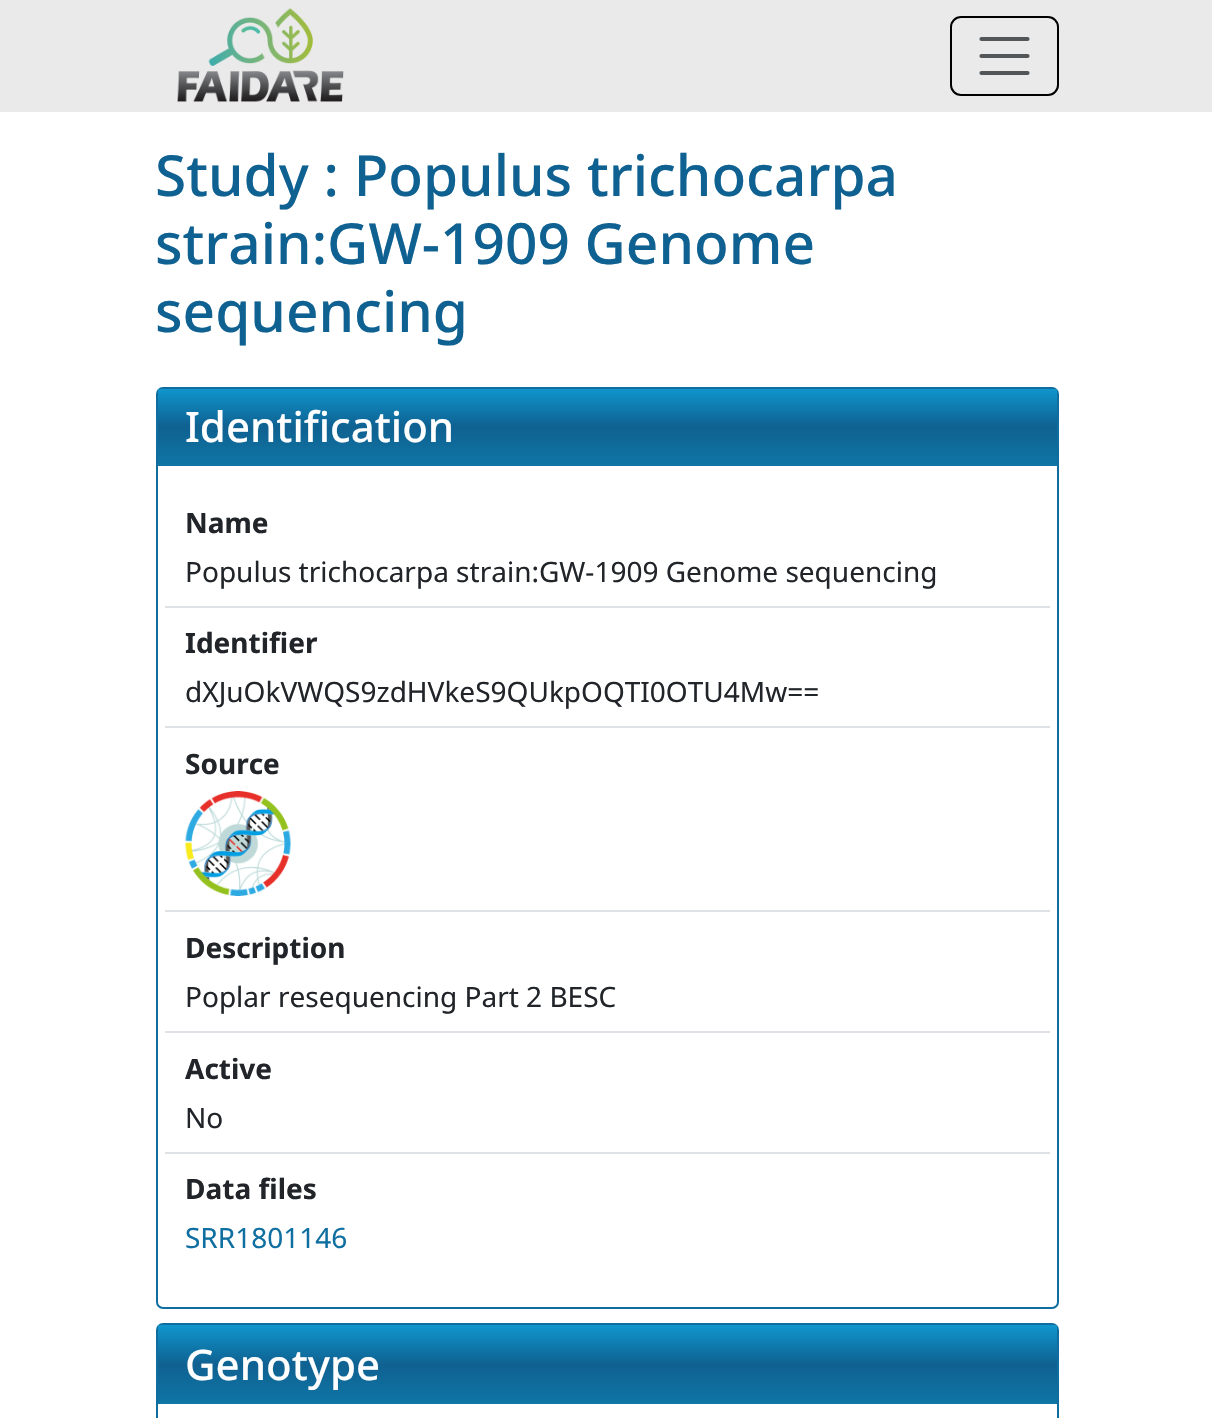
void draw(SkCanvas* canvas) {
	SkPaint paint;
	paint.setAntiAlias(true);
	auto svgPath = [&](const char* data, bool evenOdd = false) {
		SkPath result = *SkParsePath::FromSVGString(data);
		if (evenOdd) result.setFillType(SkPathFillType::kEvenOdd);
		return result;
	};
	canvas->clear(0xffffffff);
	paint.setColor(0xffeaeaea);
	canvas->drawRect(SkRect::MakeXYWH(0, 0, 1212, 112), paint);
	canvas->drawImageRect(SkImages::DeferredFromEncodedData(SkData::MakeFromFileName("img1.png")), SkRect::MakeXYWH(177, 8, 167, 94), SkSamplingOptions());
	paint.setStroke(true);
	paint.setStrokeWidth(2);
	paint.setColor(0xff000000);
	canvas->drawRoundRect(SkRect::MakeXYWH(951, 17, 107, 78), 10, 10, paint);
	paint.setStrokeWidth(4.2);
	paint.setStrokeCap(SkPaint::kRound_Cap);
	paint.setColor(0xff535659);
	canvas->drawPath(svgPath("M981.5 39H1027.5M981.5 56H1027.5M981.5 73H1027.5"), paint);
	SkFont f1(fontMgr->matchFamilyStyle("Noto Sans", SkFontStyle(500, SkFontStyle::kNormal_Width, SkFontStyle::kUpright_Slant)), 56.75);
	f1.setSubpixel(true);
	paint.setStroke(false);
	paint.setColor(0xff0f6191);
	canvas->drawString("Study : Populus trichocarpa", 155, 196, f1, paint);
	canvas->drawString("strain:GW-1909 Genome", 155, 264, f1, paint);
	canvas->drawString("sequencing", 155, 332, f1, paint);
	paint.setStroke(true);
	paint.setStrokeWidth(2);
	paint.setStrokeCap(SkPaint::kButt_Cap);
	paint.setColor(0xff0f6e9f);
	canvas->drawRoundRect(SkRect::MakeXYWH(157, 388, 901, 920), 6, 6, paint);
	paint.setStroke(false);
	{
		const SkColor colors[] = {0xff0f96cd, 0xff0f6191, 0xff0f76a5};
		const float stops[] = {0, 0.5, 1};
		const SkPoint ends[] = {{607, 388}, {607, 466}};
		paint.setShader(SkGradientShader::MakeLinear(ends, colors, stops, 3, SkTileMode::kClamp));
		paint.setAlpha(255);
	}
	canvas->drawRect(SkRect::MakeXYWH(158, 389, 899, 77), paint);
	SkFont f2(fontMgr->matchFamilyStyle("Noto Sans", SkFontStyle(500, SkFontStyle::kNormal_Width, SkFontStyle::kUpright_Slant)), 42);
	f2.setSubpixel(true);
	paint.setShader(nullptr);
	paint.setColor(0xffffffff);
	canvas->drawString("Identification", 185, 442, f2, paint);
	SkFont f3(fontMgr->matchFamilyStyle("Noto Sans", SkFontStyle::Bold()), 28);
	f3.setSubpixel(true);
	paint.setColor(0xff212529);
	canvas->drawString("Name", 185, 533, f3, paint);
	SkFont f4(fontMgr->matchFamilyStyle("Noto Sans", SkFontStyle::Normal()), 28);
	f4.setSubpixel(true);
	canvas->drawString("Populus trichocarpa strain:GW-1909 Genome sequencing", 185, 582, f4, paint);
	paint.setColor(0xffdee2e6);
	canvas->drawRect(SkRect::MakeXYWH(165, 606, 885, 2), paint);
	paint.setColor(0xff212529);
	canvas->drawString("Identifier", 185, 653, f3, paint);
	canvas->drawString("dXJuOkVWQS9zdHVkeS9QUkpOQTI0OTU4Mw==", 185, 702, f4, paint);
	paint.setColor(0xffdee2e6);
	canvas->drawRect(SkRect::MakeXYWH(165, 726, 885, 2), paint);
	paint.setColor(0xff212529);
	canvas->drawString("Source", 185, 774, f3, paint);
	canvas->drawImageRect(SkImages::DeferredFromEncodedData(SkData::MakeFromFileName("img2.png")), SkRect::MakeXYWH(185, 791, 106, 105), SkSamplingOptions());
	paint.setColor(0xffdee2e6);
	canvas->drawRect(SkRect::MakeXYWH(165, 910, 885, 2), paint);
	paint.setColor(0xff212529);
	canvas->drawString("Description", 185, 958, f3, paint);
	canvas->drawString("Poplar resequencing Part 2 BESC", 185, 1007, f4, paint);
	paint.setColor(0xffdee2e6);
	canvas->drawRect(SkRect::MakeXYWH(165, 1031, 885, 2), paint);
	paint.setColor(0xff212529);
	canvas->drawString("Active", 185, 1079, f3, paint);
	canvas->drawString("No", 185, 1128, f4, paint);
	paint.setColor(0xffdee2e6);
	canvas->drawRect(SkRect::MakeXYWH(165, 1152, 885, 2), paint);
	paint.setColor(0xff212529);
	canvas->drawString("Data files", 185, 1199, f3, paint);
	paint.setColor(0xff0f6fa1);
	canvas->drawString("SRR1801146", 185, 1248, f4, paint);
	paint.setStroke(true);
	paint.setColor(0xff0f6e9f);
	canvas->drawRoundRect(SkRect::MakeXYWH(157, 1324, 901, 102), 6, 6, paint);
	paint.setStroke(false);
	{
		const SkColor colors[] = {0xff0f96cd, 0xff0f6191, 0xff0f76a5};
		const float stops[] = {0, 0.5, 1};
		const SkPoint ends[] = {{607, 1325}, {607, 1404}};
		paint.setShader(SkGradientShader::MakeLinear(ends, colors, stops, 3, SkTileMode::kClamp));
		paint.setAlpha(255);
	}
	canvas->drawRect(SkRect::MakeXYWH(158, 1325, 899, 79), paint);
	paint.setShader(nullptr);
	paint.setColor(0xffffffff);
	canvas->drawString("Genotype", 185, 1380, f2, paint);
}
